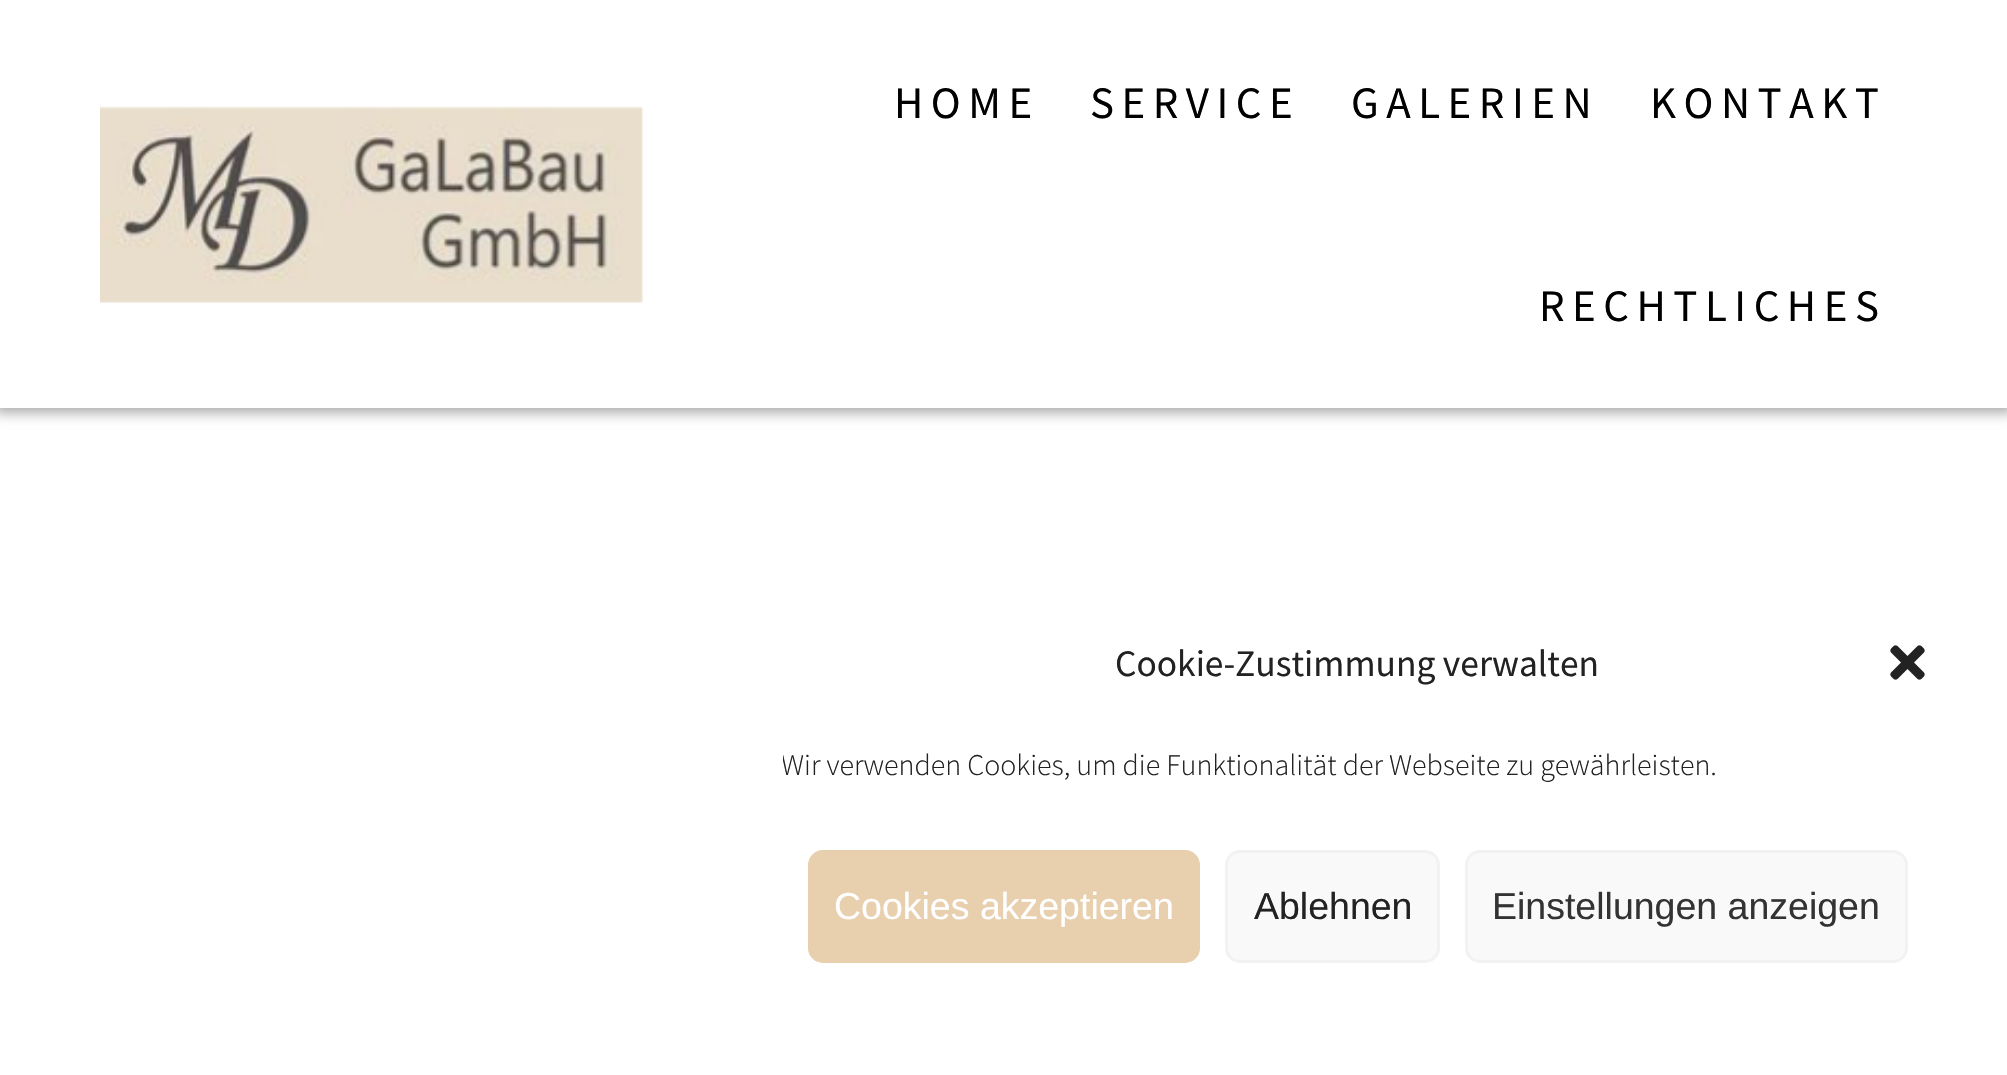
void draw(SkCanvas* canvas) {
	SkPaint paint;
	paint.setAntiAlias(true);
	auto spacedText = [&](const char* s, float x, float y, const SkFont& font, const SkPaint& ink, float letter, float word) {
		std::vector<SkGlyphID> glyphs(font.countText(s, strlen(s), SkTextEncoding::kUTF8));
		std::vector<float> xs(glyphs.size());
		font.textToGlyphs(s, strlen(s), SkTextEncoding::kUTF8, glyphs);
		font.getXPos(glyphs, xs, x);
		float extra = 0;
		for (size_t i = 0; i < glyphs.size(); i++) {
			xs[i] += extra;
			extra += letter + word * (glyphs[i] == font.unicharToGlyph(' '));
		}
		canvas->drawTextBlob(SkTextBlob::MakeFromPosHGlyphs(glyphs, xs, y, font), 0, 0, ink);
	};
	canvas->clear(0xffffffff);
	paint.setColor(0x54000000);
	paint.setMaskFilter(SkMaskFilter::MakeBlur(kNormal_SkBlurStyle, 6));
	canvas->drawRect(SkRect::MakeXYWH(-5, -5, 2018, 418), paint);
	paint.setMaskFilter(nullptr);
	paint.setColor(0xffffffff);
	canvas->drawRect(SkRect::MakeXYWH(0, 0, 2007, 408), paint);
	canvas->drawImageRect(SkImages::DeferredFromEncodedData(SkData::MakeFromFileName("img1.png")), SkRect::MakeXYWH(100, 106, 543, 197), SkSamplingOptions());
	SkFont f1(fontMgr->matchFamilyStyle("Source Sans Pro", SkFontStyle::Normal()), 45);
	f1.setSubpixel(true);
	paint.setColor(0xff000000);
	spacedText("HOME", 894, 118, f1, paint, 7.5, 0);
	spacedText("SERVICE", 1090, 118, f1, paint, 7.5, 0);
	spacedText("GALERIEN", 1351, 118, f1, paint, 7.5, 0);
	spacedText("KONTAKT", 1650, 118, f1, paint, 7.5, 0);
	spacedText("RECHTLICHES", 1539, 321, f1, paint, 7.5, 0);
	SkFont f2(fontMgr->matchFamilyStyle("Source Sans Pro", SkFontStyle::Normal()), 37.5);
	f2.setSubpixel(true);
	paint.setColor(0xff222222);
	canvas->drawString("Cookie-Zustimmung verwalten", 1115, 676, f2, paint);
	canvas->drawImageRect(SkImages::DeferredFromEncodedData(SkData::MakeFromFileName("img2.png")), SkRect::MakeXYWH(1890, 645, 35, 35), SkSamplingOptions());
	canvas->save();
	canvas->clipRect(SkRect::MakeXYWH(783, 743, 1150, 57));
	SkFont f3(fontMgr->matchFamilyStyle("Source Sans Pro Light", SkFontStyle(300, SkFontStyle::kNormal_Width, SkFontStyle::kUpright_Slant)), 30);
	f3.setSubpixel(true);
	canvas->drawString("Wir verwenden Cookies, um die Funktionalität der Webseite zu gewährleisten.", 781, 775, f3, paint);
	canvas->restore();
	paint.setColor(0xffe8cfae);
	canvas->drawRoundRect(SkRect::MakeXYWH(809.5, 851.5, 389, 110), 13.5, 13.5, paint);
	paint.setStroke(true);
	paint.setStrokeWidth(3);
	canvas->drawRoundRect(SkRect::MakeXYWH(809.5, 851.5, 389, 110), 13.5, 13.5, paint);
	SkFont f4(fontMgr->matchFamilyStyle("Liberation Sans", SkFontStyle::Normal()), 37.5);
	f4.setSubpixel(true);
	paint.setStroke(false);
	paint.setColor(0xffffffff);
	canvas->drawString("Cookies akzeptieren", 834, 919, f4, paint);
	paint.setColor(0xfff9f9f9);
	canvas->drawRoundRect(SkRect::MakeXYWH(1226.5, 851.5, 212, 110), 13.5, 13.5, paint);
	paint.setStroke(true);
	paint.setColor(0xfff2f2f2);
	canvas->drawRoundRect(SkRect::MakeXYWH(1226.5, 851.5, 212, 110), 13.5, 13.5, paint);
	paint.setStroke(false);
	paint.setColor(0xff222222);
	canvas->drawString("Ablehnen", 1254, 919, f4, paint);
	paint.setColor(0xfff9f9f9);
	canvas->drawRoundRect(SkRect::MakeXYWH(1466.5, 851.5, 440, 110), 13.5, 13.5, paint);
	paint.setStroke(true);
	paint.setColor(0xfff2f2f2);
	canvas->drawRoundRect(SkRect::MakeXYWH(1466.5, 851.5, 440, 110), 13.5, 13.5, paint);
	paint.setStroke(false);
	paint.setColor(0xff333333);
	canvas->drawString("Einstellungen anzeigen", 1492, 919, f4, paint);
}
